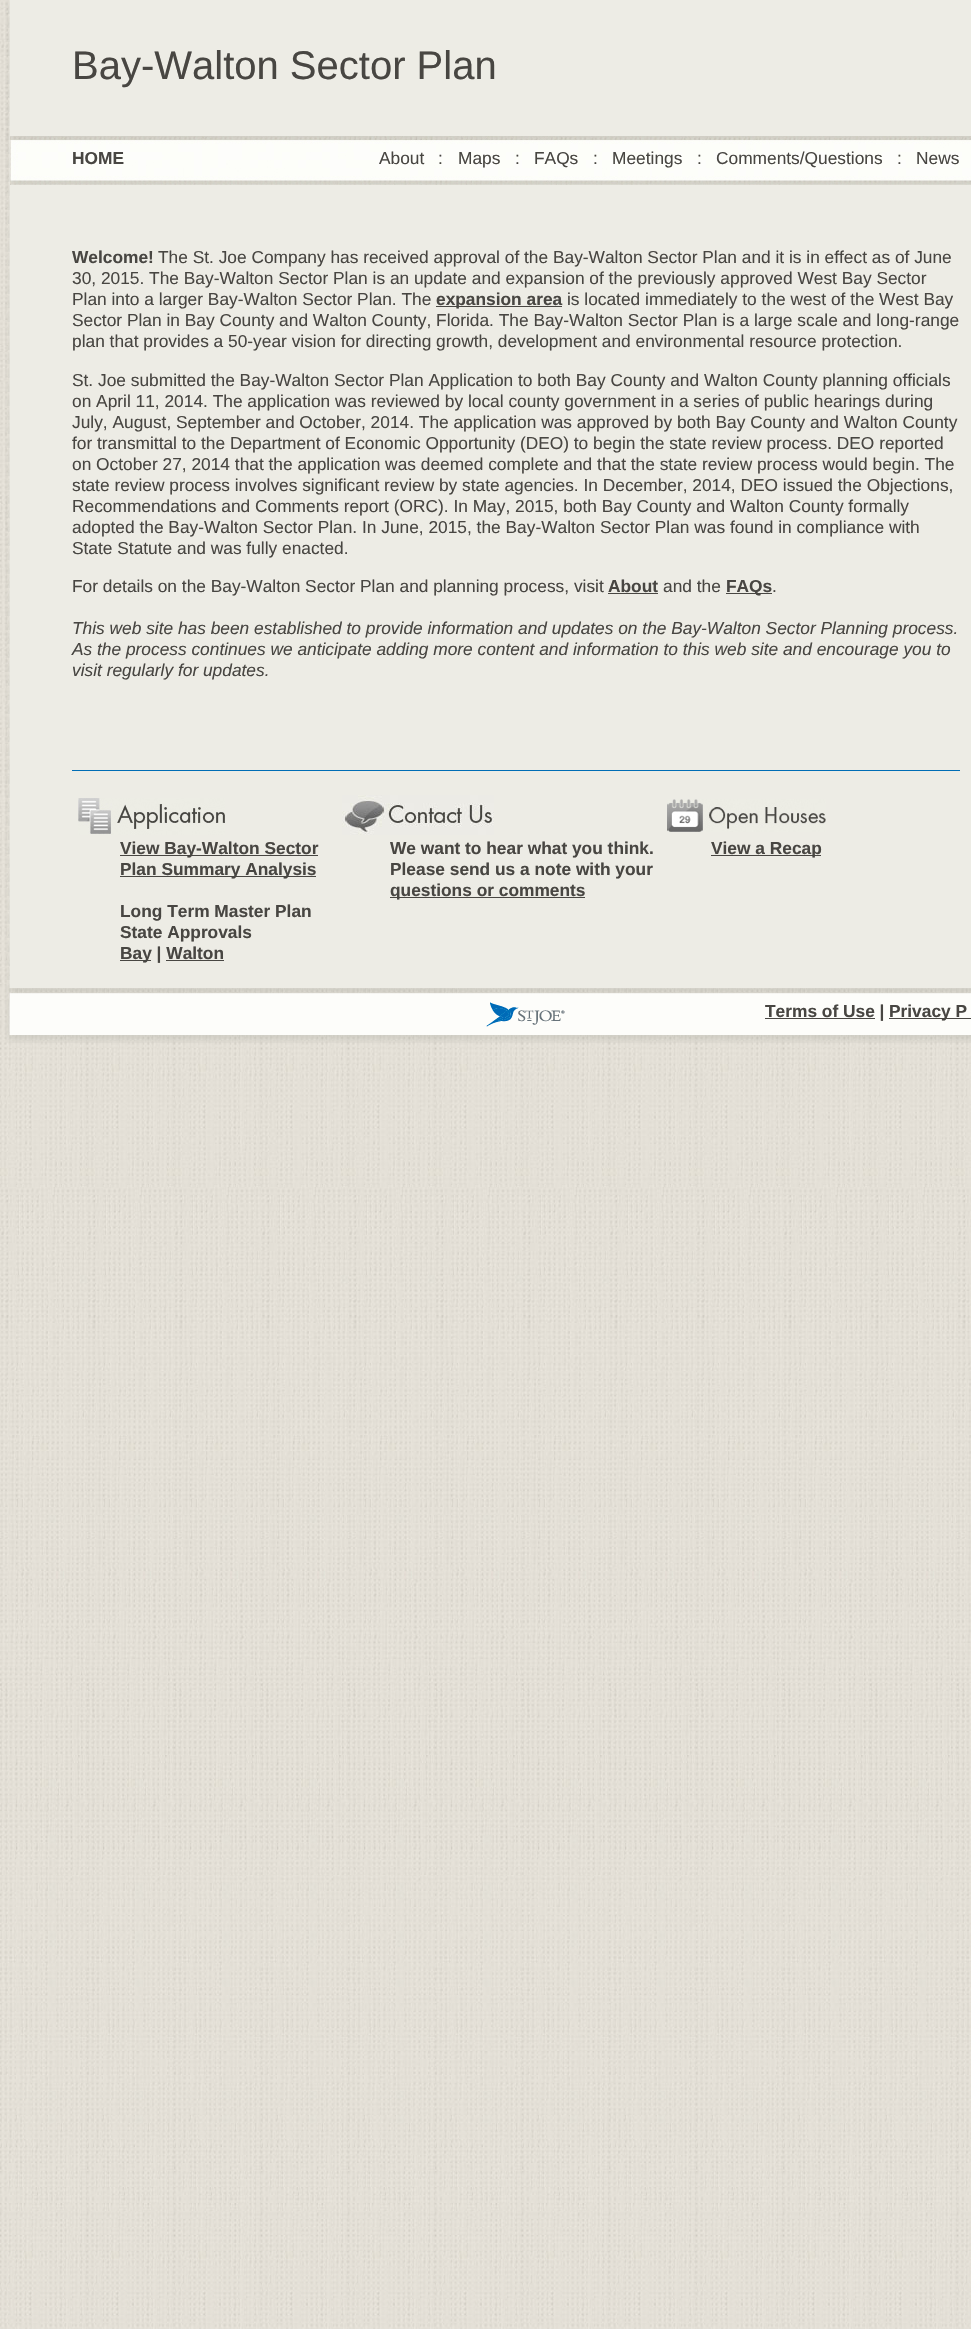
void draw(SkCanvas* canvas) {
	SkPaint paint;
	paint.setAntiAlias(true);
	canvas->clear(0xffffffff);
	canvas->drawImageRect(SkImages::DeferredFromEncodedData(SkData::MakeFromFileName("img1.png")), SkRect::MakeXYWH(0, 0, 971, 2329), SkSamplingOptions());
	canvas->drawImageRect(SkImages::DeferredFromEncodedData(SkData::MakeFromFileName("img2.png")), SkRect::MakeXYWH(5, 0, 966, 988), SkSamplingOptions());
	SkFont f1(fontMgr->matchFamilyStyle("Liberation Sans", SkFontStyle::Normal()), 40);
	f1.setSubpixel(true);
	paint.setColor(0xff484642);
	canvas->drawString("Bay-Walton Sector Plan", 72, 79, f1, paint);
	canvas->drawImageRect(SkImages::DeferredFromEncodedData(SkData::MakeFromFileName("img3.png")), SkRect::MakeXYWH(10, 136, 961, 49), SkSamplingOptions());
	SkFont f2(fontMgr->matchFamilyStyle("Liberation Sans", SkFontStyle::Bold()), 17.33);
	f2.setSubpixel(true);
	canvas->drawString("HOME", 72, 164, f2, paint);
	SkFont f3(fontMgr->matchFamilyStyle("Liberation Sans", SkFontStyle::Normal()), 17.33);
	f3.setSubpixel(true);
	canvas->drawString("About", 379, 164, f3, paint);
	canvas->drawString(":", 438, 164, f3, paint);
	canvas->drawString("Maps", 458, 164, f3, paint);
	canvas->drawString(":", 515, 164, f3, paint);
	canvas->drawString("FAQs", 534, 164, f3, paint);
	canvas->drawString(":", 593, 164, f3, paint);
	canvas->drawString("Meetings", 612, 164, f3, paint);
	canvas->drawString(":", 697, 164, f3, paint);
	canvas->drawString("Comments/Questions", 716, 164, f3, paint);
	canvas->drawString(":", 897, 164, f3, paint);
	canvas->drawString("News", 916, 164, f3, paint);
	canvas->drawString("Welcome!", 72, 263, f2, paint);
	canvas->drawString("The St. Joe Company has received approval of the Bay-Walton Sector Plan and it is in effect as of June", 158, 263, f3, paint);
	canvas->drawString("30, 2015. The Bay-Walton Sector Plan is an update and expansion of the previously approved West Bay Sector", 72, 284, f3, paint);
	canvas->drawString("Plan into a larger Bay-Walton Sector Plan. The", 72, 305, f3, paint);
	canvas->drawRect(SkRect::MakeXYWH(436, 306, 126, 1), paint);
	canvas->drawString("expansion area", 436, 305, f2, paint);
	canvas->drawString("is located immediately to the west of the West Bay", 567, 305, f3, paint);
	canvas->drawString("Sector Plan in Bay County and Walton County, Florida. The Bay-Walton Sector Plan is a large scale and long-range", 72, 326, f3, paint);
	canvas->drawString("plan that provides a 50-year vision for directing growth, development and environmental resource protection.", 72, 347, f3, paint);
	canvas->drawString("St. Joe submitted the Bay-Walton Sector Plan Application to both Bay County and Walton County planning officials", 72, 386, f3, paint);
	canvas->drawString("on April 11, 2014. The application was reviewed by local county government in a series of public hearings during", 72, 407, f3, paint);
	canvas->drawString("July, August, September and October, 2014. The application was approved by both Bay County and Walton County", 72, 428, f3, paint);
	canvas->drawString("for transmittal to the Department of Economic Opportunity (DEO) to begin the state review process. DEO reported", 72, 449, f3, paint);
	canvas->drawString("on October 27, 2014 that the application was deemed complete and that the state review process would begin. The", 72, 470, f3, paint);
	canvas->drawString("state review process involves significant review by state agencies. In December, 2014, DEO issued the Objections,", 72, 491, f3, paint);
	canvas->drawString("Recommendations and Comments report (ORC). In May, 2015, both Bay County and Walton County formally", 72, 512, f3, paint);
	canvas->drawString("adopted the Bay-Walton Sector Plan. In June, 2015, the Bay-Walton Sector Plan was found in compliance with", 72, 533, f3, paint);
	canvas->drawString("State Statute and was fully enacted.", 72, 554, f3, paint);
	canvas->drawString("For details on the Bay-Walton Sector Plan and planning process, visit", 72, 592, f3, paint);
	canvas->drawString("About", 608, 592, f2, paint);
	canvas->drawRect(SkRect::MakeXYWH(608, 593, 50, 1), paint);
	canvas->drawString("and the", 663, 592, f3, paint);
	canvas->drawRect(SkRect::MakeXYWH(726, 593, 46, 1), paint);
	canvas->drawString("FAQs", 726, 592, f2, paint);
	canvas->drawString(".", 772, 592, f3, paint);
	SkFont f4(fontMgr->matchFamilyStyle("Liberation Sans", SkFontStyle::Italic()), 17.33);
	f4.setSubpixel(true);
	canvas->drawString("This web site has been established to provide information and updates on the Bay-Walton Sector Planning process.", 72, 634, f4, paint);
	canvas->drawString("As the process continues we anticipate adding more content and information to this web site and encourage you to", 72, 655, f4, paint);
	canvas->drawString("visit regularly for updates.", 72, 676, f4, paint);
	paint.setColor(0xff006db5);
	canvas->drawRect(SkRect::MakeXYWH(72, 770, 888, 1), paint);
	canvas->drawImageRect(SkImages::DeferredFromEncodedData(SkData::MakeFromFileName("img4.png")), SkRect::MakeXYWH(78, 798, 147, 37), SkSamplingOptions());
	paint.setColor(0xff484642);
	canvas->drawRect(SkRect::MakeXYWH(120, 855, 198, 1), paint);
	canvas->drawString("View Bay-Walton Sector", 120, 854, f2, paint);
	canvas->drawRect(SkRect::MakeXYWH(120, 876, 196, 1), paint);
	canvas->drawString("Plan Summary Analysis", 120, 875, f2, paint);
	canvas->drawString("Long Term Master Plan", 120, 917, f2, paint);
	canvas->drawString("State Approvals", 120, 938, f2, paint);
	canvas->drawRect(SkRect::MakeXYWH(120, 960, 31, 1), paint);
	canvas->drawString("Bay | Walton", 120, 959, f2, paint);
	canvas->drawRect(SkRect::MakeXYWH(166, 960, 58, 1), paint);
	canvas->drawImageRect(SkImages::DeferredFromEncodedData(SkData::MakeFromFileName("img5.png")), SkRect::MakeXYWH(342, 795, 152, 40), SkSamplingOptions());
	canvas->drawString("We want to hear what you think.", 390, 854, f2, paint);
	canvas->drawString("Please send us a note with your", 390, 875, f2, paint);
	canvas->drawRect(SkRect::MakeXYWH(390, 897, 195, 1), paint);
	canvas->drawString("questions or comments", 390, 896, f2, paint);
	canvas->drawImageRect(SkImages::DeferredFromEncodedData(SkData::MakeFromFileName("img6.png")), SkRect::MakeXYWH(667, 799, 159, 33), SkSamplingOptions());
	canvas->drawRect(SkRect::MakeXYWH(711, 855, 110, 1), paint);
	canvas->drawString("View a Recap", 711, 854, f2, paint);
	canvas->drawImageRect(SkImages::DeferredFromEncodedData(SkData::MakeFromFileName("img7.png")), SkRect::MakeXYWH(5, 988, 966, 55), SkSamplingOptions());
	canvas->drawRect(SkRect::MakeXYWH(765, 1018, 110, 1), paint);
	canvas->drawString("Terms of Use |", 765, 1017, f2, paint);
	canvas->drawRect(SkRect::MakeXYWH(889, 1018, 82, 1), paint);
	canvas->drawString("Privacy P", 889, 1017, f2, paint);
}
